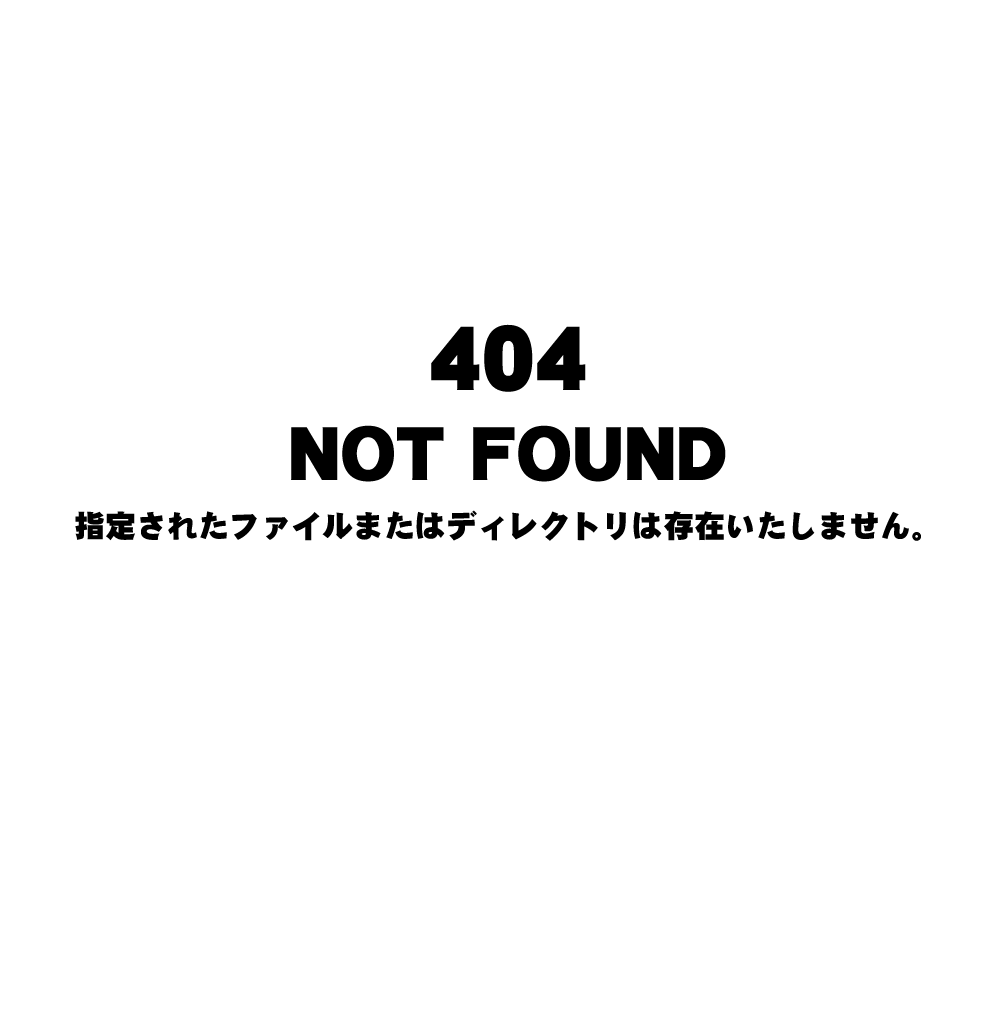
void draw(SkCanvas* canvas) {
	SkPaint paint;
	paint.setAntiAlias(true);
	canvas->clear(0xffffffff);
	canvas->drawImageRect(SkImages::DeferredFromEncodedData(SkData::MakeFromFileName("img1.png")), SkRect::MakeXYWH(75, 324, 846, 217), SkSamplingOptions());
}
